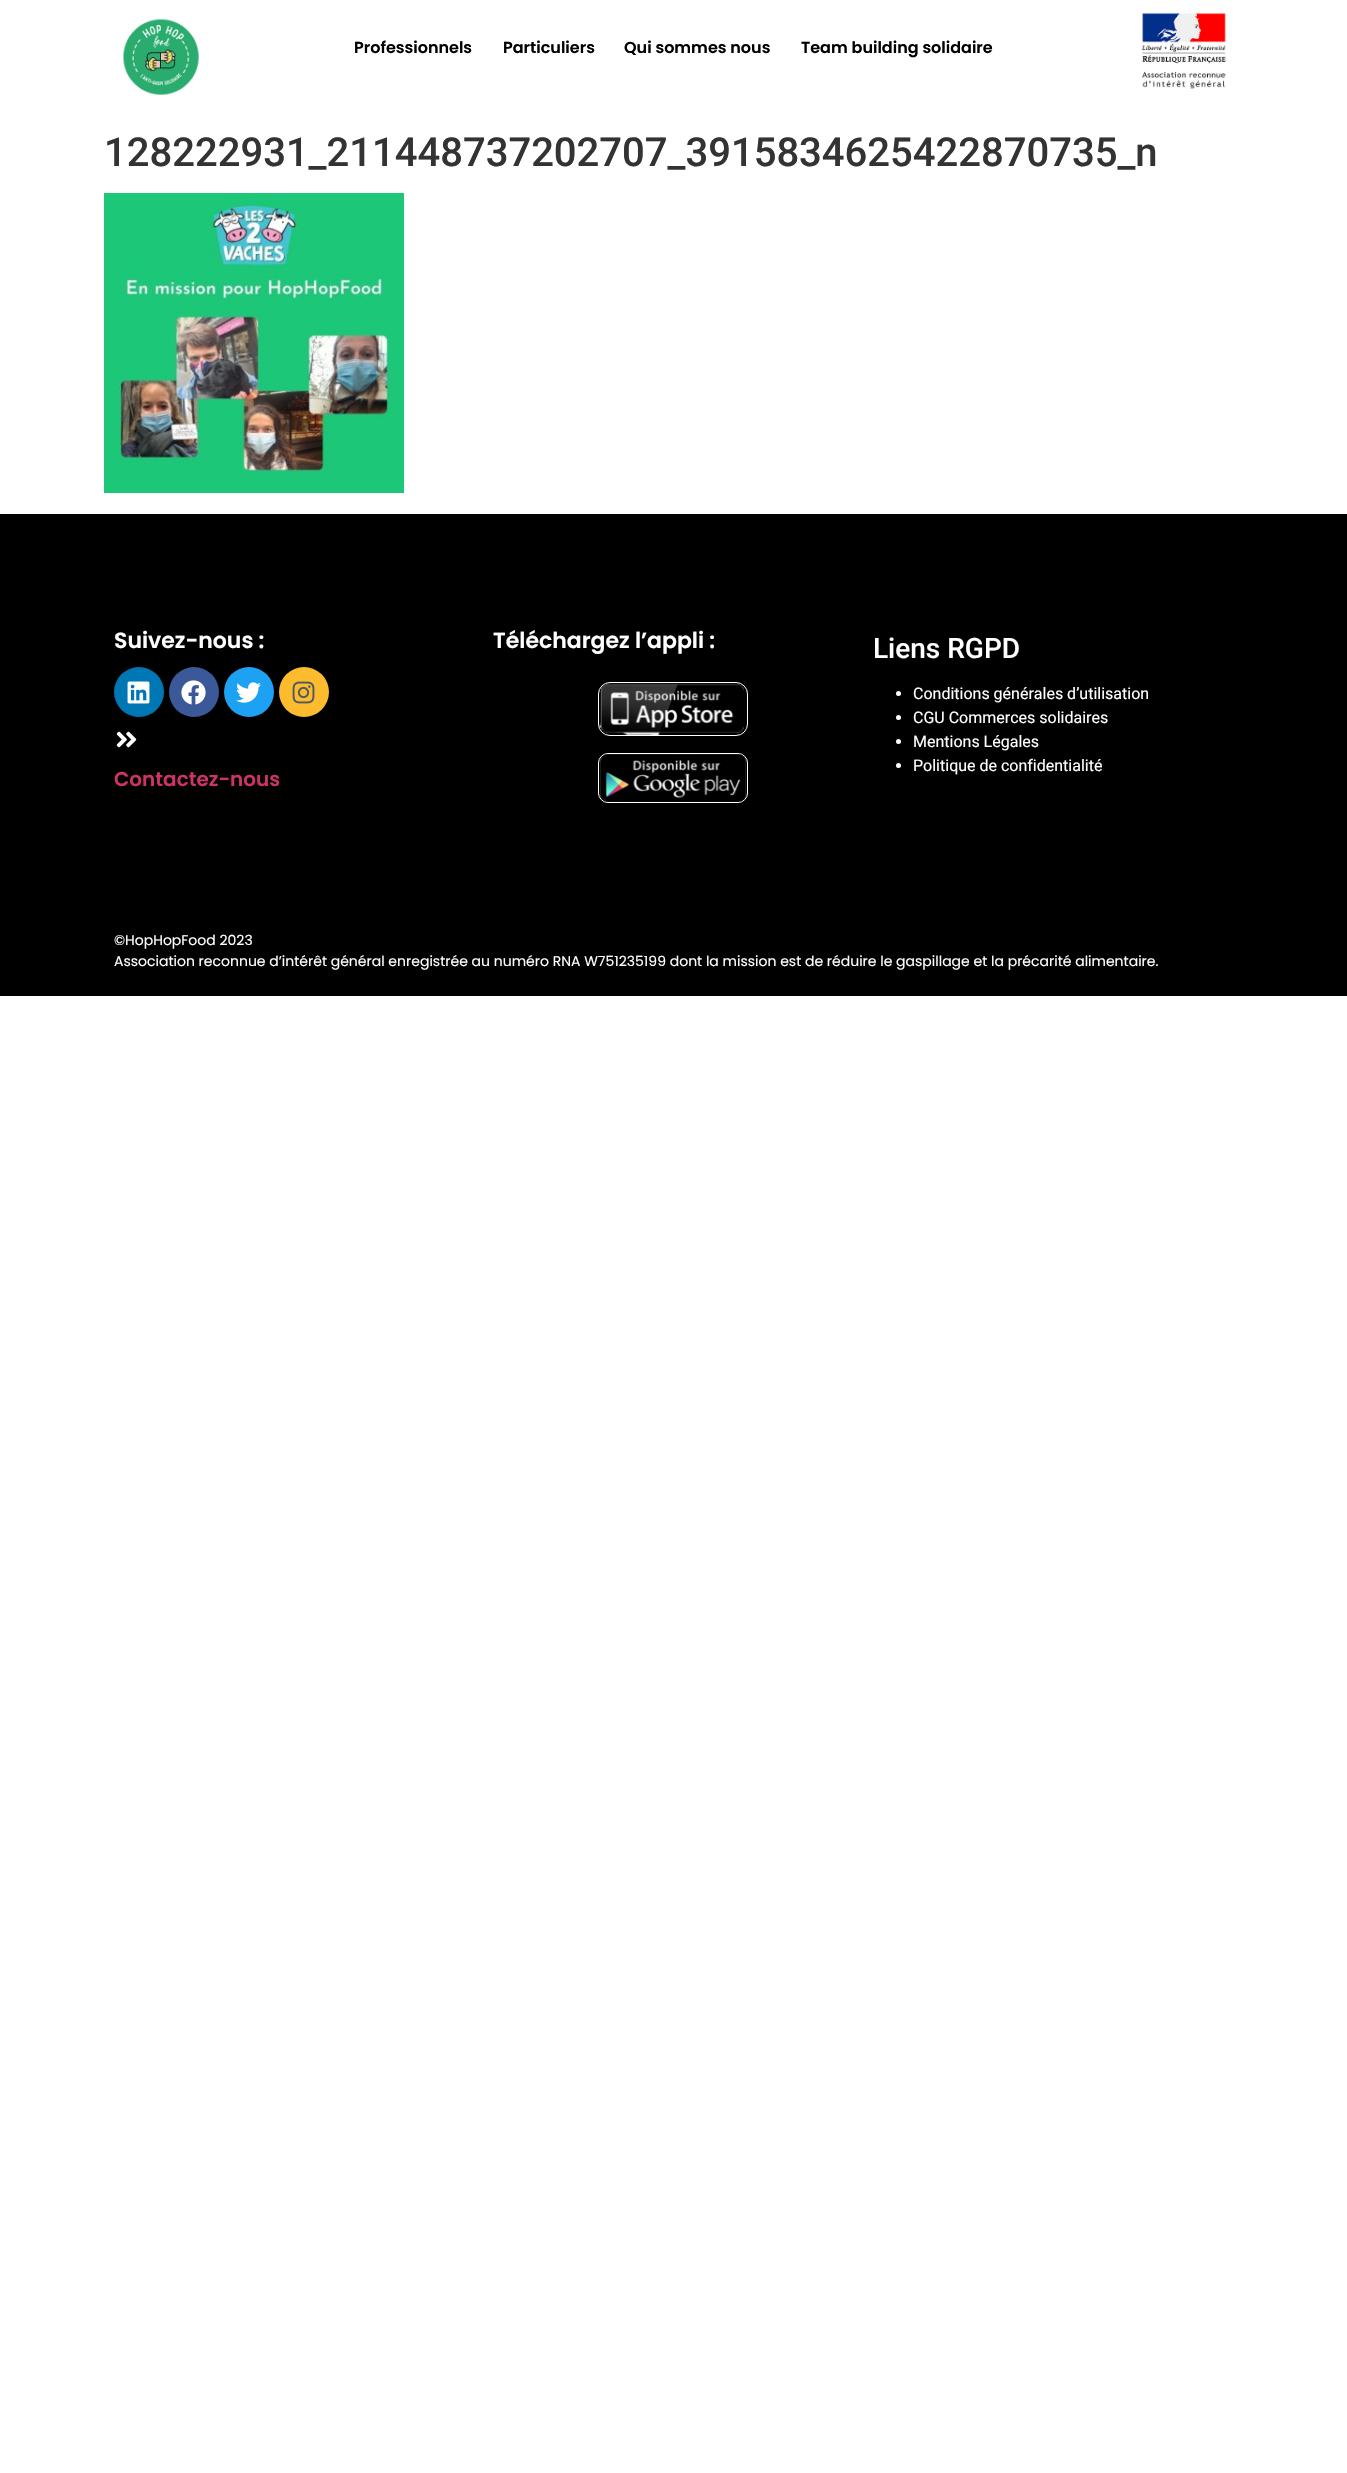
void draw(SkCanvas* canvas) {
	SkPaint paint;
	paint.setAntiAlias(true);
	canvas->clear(0xffffffff);
	canvas->drawImageRect(SkImages::DeferredFromEncodedData(SkData::MakeFromFileName("img1.png")), SkRect::MakeXYWH(123, 19, 76, 76), SkSamplingOptions());
	SkFont f1(fontMgr->matchFamilyStyle("Poppins", SkFontStyle(600, SkFontStyle::kNormal_Width, SkFontStyle::kUpright_Slant)), 16);
	f1.setSubpixel(true);
	paint.setColor(0xff000000);
	canvas->drawString("Professionnels", 354, 53, f1, paint);
	canvas->drawString("Particuliers", 503, 53, f1, paint);
	canvas->drawString("Qui sommes nous", 624, 53, f1, paint);
	canvas->drawString("Team building solidaire", 801, 53, f1, paint);
	canvas->drawImageRect(SkImages::DeferredFromEncodedData(SkData::MakeFromFileName("img2.png")), SkRect::MakeXYWH(1141, 13, 85, 76), SkSamplingOptions());
	SkFont f2(fontMgr->matchFamilyStyle("Roboto", SkFontStyle(500, SkFontStyle::kNormal_Width, SkFontStyle::kUpright_Slant)), 40);
	f2.setSubpixel(true);
	paint.setColor(0xff333333);
	canvas->drawString("128222931_211448737202707_3915834625422870735_n", 104, 166, f2, paint);
	canvas->drawImageRect(SkImages::DeferredFromEncodedData(SkData::MakeFromFileName("img3.png")), SkRect::MakeXYWH(104, 193, 300, 300), SkSamplingOptions());
	paint.setColor(0xff000000);
	canvas->drawRect(SkRect::MakeXYWH(0, 514, 1347, 482), paint);
	SkFont f3(fontMgr->matchFamilyStyle("Poppins", SkFontStyle(600, SkFontStyle::kNormal_Width, SkFontStyle::kUpright_Slant)), 22);
	f3.setSubpixel(true);
	paint.setColor(0xffffffff);
	canvas->drawString("Suivez-nous :", 114, 648, f3, paint);
	paint.setColor(0xff0077b5);
	canvas->drawCircle(139, 692, 25, paint);
	canvas->drawImageRect(SkImages::DeferredFromEncodedData(SkData::MakeFromFileName("img4.png")), SkRect::MakeXYWH(127, 681, 23, 23), SkSamplingOptions());
	paint.setColor(0xff3b5998);
	canvas->drawCircle(194, 692, 25, paint);
	canvas->drawImageRect(SkImages::DeferredFromEncodedData(SkData::MakeFromFileName("img5.png")), SkRect::MakeXYWH(181, 680, 25, 25), SkSamplingOptions());
	paint.setColor(0xff1da1f2);
	canvas->drawCircle(249, 692, 25, paint);
	canvas->drawImageRect(SkImages::DeferredFromEncodedData(SkData::MakeFromFileName("img6.png")), SkRect::MakeXYWH(236, 682, 25, 21), SkSamplingOptions());
	paint.setColor(0xfffcbc2e);
	canvas->drawCircle(304, 692, 25, paint);
	canvas->drawImageRect(SkImages::DeferredFromEncodedData(SkData::MakeFromFileName("img7.png")), SkRect::MakeXYWH(292, 681, 23, 23), SkSamplingOptions());
	canvas->drawImageRect(SkImages::DeferredFromEncodedData(SkData::MakeFromFileName("img8.png")), SkRect::MakeXYWH(116, 731, 21, 17), SkSamplingOptions());
	SkFont f4(fontMgr->matchFamilyStyle("Poppins", SkFontStyle(600, SkFontStyle::kNormal_Width, SkFontStyle::kUpright_Slant)), 20);
	f4.setSubpixel(true);
	paint.setColor(0xffcc3366);
	canvas->drawString("Contactez-nous", 114, 786, f4, paint);
	paint.setColor(0xffffffff);
	canvas->drawString("Téléchargez l’appli :", 493, 648, f3, paint);
	paint.setStroke(true);
	paint.setStrokeWidth(1);
	canvas->drawRoundRect(SkRect::MakeXYWH(598.5, 682.5, 149, 53), 11.5, 11.5, paint);
	canvas->drawImageRect(SkImages::DeferredFromEncodedData(SkData::MakeFromFileName("img9.png")), SkRect::MakeXYWH(599, 683, 145, 52), SkSamplingOptions());
	canvas->drawRoundRect(SkRect::MakeXYWH(598.5, 753.5, 149, 49), 9.5, 9.5, paint);
	canvas->drawImageRect(SkImages::DeferredFromEncodedData(SkData::MakeFromFileName("img10.png")), SkRect::MakeXYWH(600, 754, 146, 48), SkSamplingOptions());
	SkFont f5(fontMgr->matchFamilyStyle("Roboto", SkFontStyle(500, SkFontStyle::kNormal_Width, SkFontStyle::kUpright_Slant)), 28);
	f5.setSubpixel(true);
	paint.setStroke(false);
	canvas->drawString("Liens RGPD", 873, 658, f5, paint);
	canvas->drawCircle(898.5, 693.5, 2.5, paint);
	SkFont f6(fontMgr->matchFamilyStyle("Roboto", SkFontStyle::Normal()), 16);
	f6.setSubpixel(true);
	canvas->drawString("Conditions générales d’utilisation", 913, 699, f6, paint);
	canvas->drawCircle(898.5, 717.5, 2.5, paint);
	canvas->drawString("CGU Commerces solidaires", 913, 723, f6, paint);
	canvas->drawCircle(898.5, 741.5, 2.5, paint);
	canvas->drawString("Mentions Légales", 913, 747, f6, paint);
	canvas->drawCircle(898.5, 765.5, 2.5, paint);
	canvas->drawString("Politique de confidentialité", 913, 771, f6, paint);
	SkFont f7(fontMgr->matchFamilyStyle("Poppins", SkFontStyle::Normal()), 14);
	f7.setSubpixel(true);
	canvas->drawString("©HopHopFood 2023", 114, 945, f7, paint);
	canvas->drawString("Association reconnue d’intérêt général enregistrée au numéro RNA W751235199 dont la mission est de réduire le gaspillage et la précarité alimentaire.", 114, 966, f7, paint);
}
